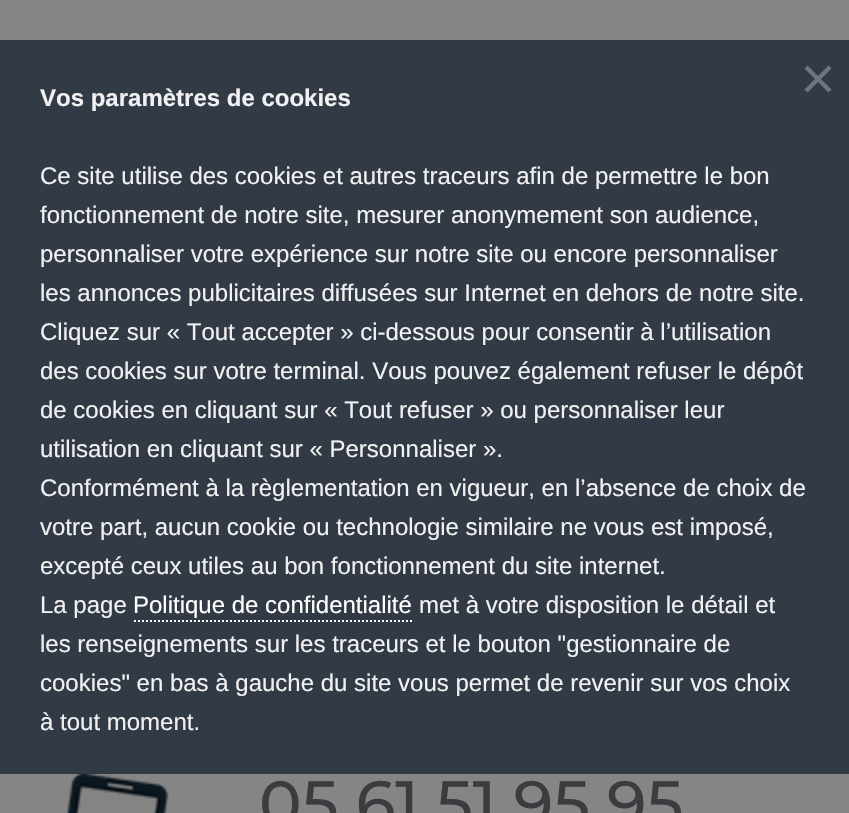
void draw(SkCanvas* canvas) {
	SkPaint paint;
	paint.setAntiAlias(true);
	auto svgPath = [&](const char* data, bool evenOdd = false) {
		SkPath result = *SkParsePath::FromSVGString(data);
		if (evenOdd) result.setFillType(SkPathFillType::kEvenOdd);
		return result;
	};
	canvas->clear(0xff858585);
	paint.setColor(0xff323a45);
	canvas->drawRect(SkRect::MakeXYWH(0, 40, 849, 734), paint);
	paint.setColor(0xff70757d);
	canvas->drawPath(svgPath("M828.5 65.5L831.5 68.5L807.5 92.5L804.5 89.5Z"), paint);
	canvas->drawPath(svgPath("M804.5 68.5L807.5 65.5L831.5 89.5L828.5 92.5Z"), paint);
	SkFont f1(fontMgr->matchFamilyStyle("Liberation Sans", SkFontStyle::Bold()), 24);
	f1.setSubpixel(true);
	paint.setColor(0xfff1f1f3);
	canvas->drawString("Vos paramètres de cookies", 40, 106, f1, paint);
	SkFont f2(fontMgr->matchFamilyStyle("Liberation Sans", SkFontStyle::Normal()), 24);
	f2.setSubpixel(true);
	canvas->drawString("Ce site utilise des cookies et autres traceurs afin de permettre le bon", 40, 184, f2, paint);
	canvas->drawString("fonctionnement de notre site, mesurer anonymement son audience,", 40, 223, f2, paint);
	canvas->drawString("personnaliser votre expérience sur notre site ou encore personnaliser", 40, 262, f2, paint);
	canvas->drawString("les annonces publicitaires diffusées sur Internet en dehors de notre site.", 40, 301, f2, paint);
	canvas->drawString("Cliquez sur « Tout accepter » ci-dessous pour consentir à l’utilisation", 40, 340, f2, paint);
	canvas->drawString("des cookies sur votre terminal. Vous pouvez également refuser le dépôt", 40, 379, f2, paint);
	canvas->drawString("de cookies en cliquant sur « Tout refuser » ou personnaliser leur", 40, 418, f2, paint);
	canvas->drawString("utilisation en cliquant sur « Personnaliser ».", 40, 457, f2, paint);
	canvas->drawString("Conformément à la règlementation en vigueur, en l’absence de choix de", 40, 496, f2, paint);
	canvas->drawString("votre part, aucun cookie ou technologie similaire ne vous est imposé,", 40, 535, f2, paint);
	canvas->drawString("excepté ceux utiles au bon fonctionnement du site internet.", 40, 574, f2, paint);
	canvas->drawString("La page", 40, 613, f2, paint);
	paint.setColor(0xffffffff);
	canvas->drawString("Politique de confidentialité", 133, 613, f2, paint);
	paint.setStroke(true);
	paint.setStrokeWidth(2);
	paint.setPathEffect(SkDashPathEffect::Make({{2, 2}}, 0));
	canvas->drawPath(svgPath("M134 621H412"), paint);
	paint.setPathEffect(nullptr);
	paint.setStroke(false);
	paint.setColor(0xfff1f1f3);
	canvas->drawString("met à votre disposition le détail et", 419, 613, f2, paint);
	canvas->drawString("les renseignements sur les traceurs et le bouton \"gestionnaire de", 40, 652, f2, paint);
	canvas->drawString("cookies\" en bas à gauche du site vous permet de revenir sur vos choix", 40, 691, f2, paint);
	canvas->drawString("à tout moment.", 40, 730, f2, paint);
	canvas->drawImageRect(SkImages::DeferredFromEncodedData(SkData::MakeFromFileName("img1.png")), SkRect::MakeXYWH(66, 774, 103, 39), SkSamplingOptions());
	SkFont f3(fontMgr->matchFamilyStyle("Montserrat", SkFontStyle(100, SkFontStyle::kNormal_Width, SkFontStyle::kUpright_Slant)), 64);
	f3.setSubpixel(true);
	paint.setColor(0xff3b3c3f);
	canvas->drawString("05 61 51 95 95", 259, 826, f3, paint);
}
